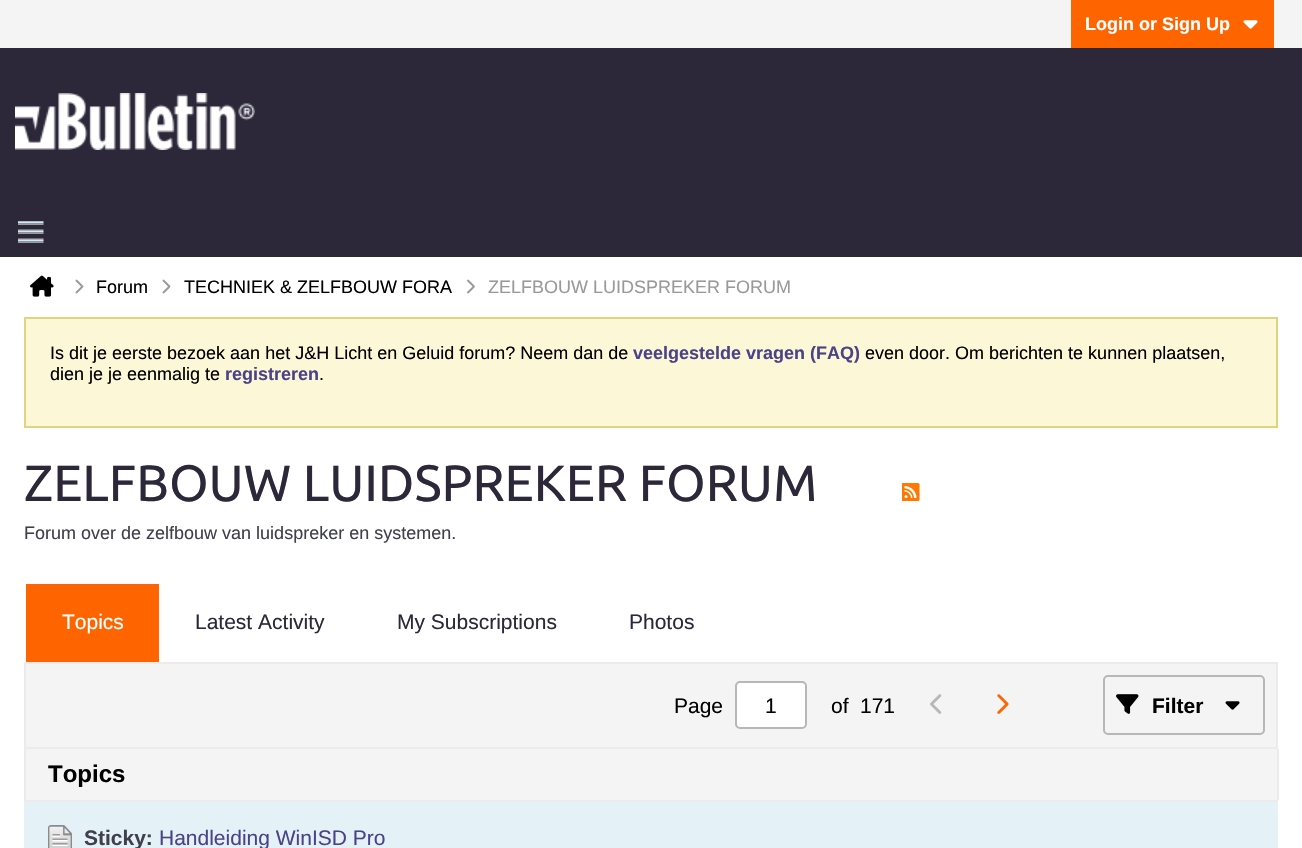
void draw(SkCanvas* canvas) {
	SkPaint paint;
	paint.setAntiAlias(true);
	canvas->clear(0xfff5f4f4);
	paint.setColor(0xfffe6500);
	canvas->drawRect(SkRect::MakeXYWH(1071, 0, 203, 48), paint);
	SkFont f1(fontMgr->matchFamilyStyle("Liberation Sans", SkFontStyle::Bold()), 18);
	f1.setSubpixel(true);
	paint.setColor(0xffffffff);
	canvas->drawString("Login or Sign Up", 1085, 30, f1, paint);
	canvas->drawImageRect(SkImages::DeferredFromEncodedData(SkData::MakeFromFileName("img1.png")), SkRect::MakeXYWH(1243, 20, 15, 9), SkSamplingOptions());
	paint.setColor(0xff2c283a);
	canvas->drawRect(SkRect::MakeXYWH(0, 48, 1302, 209), paint);
	canvas->drawImageRect(SkImages::DeferredFromEncodedData(SkData::MakeFromFileName("img2.png")), SkRect::MakeXYWH(15, 93, 240, 57), SkSamplingOptions());
	canvas->drawImageRect(SkImages::DeferredFromEncodedData(SkData::MakeFromFileName("img3.png")), SkRect::MakeXYWH(18, 221, 26, 22), SkSamplingOptions());
	paint.setColor(0xffffffff);
	canvas->drawRect(SkRect::MakeXYWH(0, 257, 1302, 591), paint);
	canvas->drawImageRect(SkImages::DeferredFromEncodedData(SkData::MakeFromFileName("img4.png")), SkRect::MakeXYWH(30, 275, 24, 22), SkSamplingOptions());
	canvas->drawImageRect(SkImages::DeferredFromEncodedData(SkData::MakeFromFileName("img5.png")), SkRect::MakeXYWH(75, 279, 9, 15), SkSamplingOptions());
	SkFont f2(fontMgr->matchFamilyStyle("Liberation Sans", SkFontStyle::Normal()), 18);
	f2.setSubpixel(true);
	paint.setColor(0xff000000);
	canvas->drawString("Forum", 96, 293, f2, paint);
	canvas->drawImageRect(SkImages::DeferredFromEncodedData(SkData::MakeFromFileName("img5.png")), SkRect::MakeXYWH(162, 279, 9, 15), SkSamplingOptions());
	canvas->drawString("TECHNIEK & ZELFBOUW FORA", 184, 293, f2, paint);
	canvas->drawImageRect(SkImages::DeferredFromEncodedData(SkData::MakeFromFileName("img6.png")), SkRect::MakeXYWH(467, 279, 8, 15), SkSamplingOptions());
	paint.setColor(0xff999999);
	canvas->drawString("ZELFBOUW LUIDSPREKER FORUM", 488, 293, f2, paint);
	paint.setColor(0xfffcf7d7);
	canvas->drawRect(SkRect::MakeXYWH(25, 318, 1252, 109), paint);
	paint.setStroke(true);
	paint.setStrokeWidth(2);
	paint.setColor(0xffe1d47e);
	canvas->drawRect(SkRect::MakeXYWH(25, 318, 1252, 109), paint);
	paint.setStroke(false);
	paint.setColor(0xff000000);
	canvas->drawString("Is dit je eerste bezoek aan het J&H Licht en Geluid forum? Neem dan de", 50, 359, f2, paint);
	paint.setColor(0xff4b4387);
	canvas->drawString("veelgestelde vragen (FAQ)", 633, 359, f1, paint);
	paint.setColor(0xff000000);
	canvas->drawString("even door. Om berichten te kunnen plaatsen,", 865, 359, f2, paint);
	canvas->drawString("dien je je eenmalig te", 50, 380, f2, paint);
	paint.setColor(0xff4b4387);
	canvas->drawString("registreren", 225, 380, f1, paint);
	paint.setColor(0xff000000);
	canvas->drawString(".", 319, 380, f2, paint);
	SkFont f3(fontMgr->matchFamilyStyle("Ubuntu", SkFontStyle::Normal()), 51);
	f3.setSubpixel(true);
	paint.setColor(0xff2c283a);
	canvas->drawString("ZELFBOUW LUIDSPREKER FORUM", 24, 501, f3, paint);
	canvas->drawImageRect(SkImages::DeferredFromEncodedData(SkData::MakeFromFileName("img7.png")), SkRect::MakeXYWH(902, 483, 18, 18), SkSamplingOptions());
	paint.setColor(0xff40404c);
	canvas->drawString("Forum over de zelfbouw van luidspreker en systemen.", 24, 539, f2, paint);
	paint.setColor(0xfffe6500);
	canvas->drawRect(SkRect::MakeXYWH(26, 584, 133, 78), paint);
	SkFont f4(fontMgr->matchFamilyStyle("Liberation Sans", SkFontStyle::Normal()), 21);
	f4.setSubpixel(true);
	paint.setColor(0xffffffff);
	canvas->drawString("Topics", 62, 629, f4, paint);
	paint.setColor(0xff2c283a);
	canvas->drawString("Latest Activity", 195, 629, f4, paint);
	canvas->drawString("My Subscriptions", 397, 629, f4, paint);
	canvas->drawString("Photos", 629, 629, f4, paint);
	paint.setColor(0xfff5f4f4);
	canvas->drawRect(SkRect::MakeXYWH(25, 663, 1252, 85), paint);
	paint.setStroke(true);
	paint.setColor(0xffeceaea);
	canvas->drawRect(SkRect::MakeXYWH(25, 663, 1252, 85), paint);
	paint.setStroke(false);
	paint.setColor(0xff000000);
	canvas->drawString("Page", 674, 713, f4, paint);
	paint.setColor(0xffffffff);
	canvas->drawRoundRect(SkRect::MakeXYWH(736, 682, 70, 46), 4, 4, paint);
	paint.setStroke(true);
	paint.setColor(0xffb7b7b7);
	canvas->drawRoundRect(SkRect::MakeXYWH(736, 682, 70, 46), 4, 4, paint);
	paint.setStroke(false);
	paint.setColor(0xff000000);
	canvas->drawString("1", 765, 713, f4, paint);
	canvas->drawString("of", 831, 713, f4, paint);
	canvas->drawString("171", 860, 713, f4, paint);
	canvas->drawImageRect(SkImages::DeferredFromEncodedData(SkData::MakeFromFileName("img8.png")), SkRect::MakeXYWH(930, 694, 12, 20), SkSamplingOptions());
	canvas->drawImageRect(SkImages::DeferredFromEncodedData(SkData::MakeFromFileName("img9.png")), SkRect::MakeXYWH(997, 694, 12, 20), SkSamplingOptions());
	paint.setStroke(true);
	paint.setColor(0xffb7b7b7);
	canvas->drawRoundRect(SkRect::MakeXYWH(1104, 676, 160, 58), 4, 4, paint);
	canvas->drawImageRect(SkImages::DeferredFromEncodedData(SkData::MakeFromFileName("img10.png")), SkRect::MakeXYWH(1116, 694, 23, 20), SkSamplingOptions());
	SkFont f5(fontMgr->matchFamilyStyle("Liberation Sans", SkFontStyle::Bold()), 21);
	f5.setSubpixel(true);
	paint.setStroke(false);
	paint.setColor(0xff000000);
	canvas->drawString("Filter", 1152, 713, f5, paint);
	canvas->drawImageRect(SkImages::DeferredFromEncodedData(SkData::MakeFromFileName("img11.png")), SkRect::MakeXYWH(1225, 701, 15, 9), SkSamplingOptions());
	paint.setColor(0xfff5f4f4);
	canvas->drawRect(SkRect::MakeXYWH(26, 749, 1251, 51), paint);
	paint.setColor(0xffeceaea);
	canvas->drawRect(SkRect::MakeXYWH(1277, 749, 2, 51), paint);
	canvas->drawRect(SkRect::MakeXYWH(24, 749, 2, 51), paint);
	SkFont f6(fontMgr->matchFamilyStyle("Liberation Sans", SkFontStyle::Bold()), 24);
	f6.setSubpixel(true);
	paint.setColor(0xff000000);
	canvas->drawString("Topics", 48, 782, f6, paint);
	paint.setColor(0xffe4f1f6);
	canvas->drawRect(SkRect::MakeXYWH(24, 802, 1254, 46), paint);
	paint.setColor(0xffeceaea);
	canvas->drawRect(SkRect::MakeXYWH(24, 800, 1254, 2), paint);
	canvas->drawImageRect(SkImages::DeferredFromEncodedData(SkData::MakeFromFileName("img12.png")), SkRect::MakeXYWH(48, 825, 24, 23), SkSamplingOptions());
	paint.setColor(0xff40404c);
	canvas->drawString("Sticky:", 84, 845, f5, paint);
	paint.setColor(0xff4b4387);
	canvas->drawString("Handleiding WinISD Pro", 159, 845, f4, paint);
}
